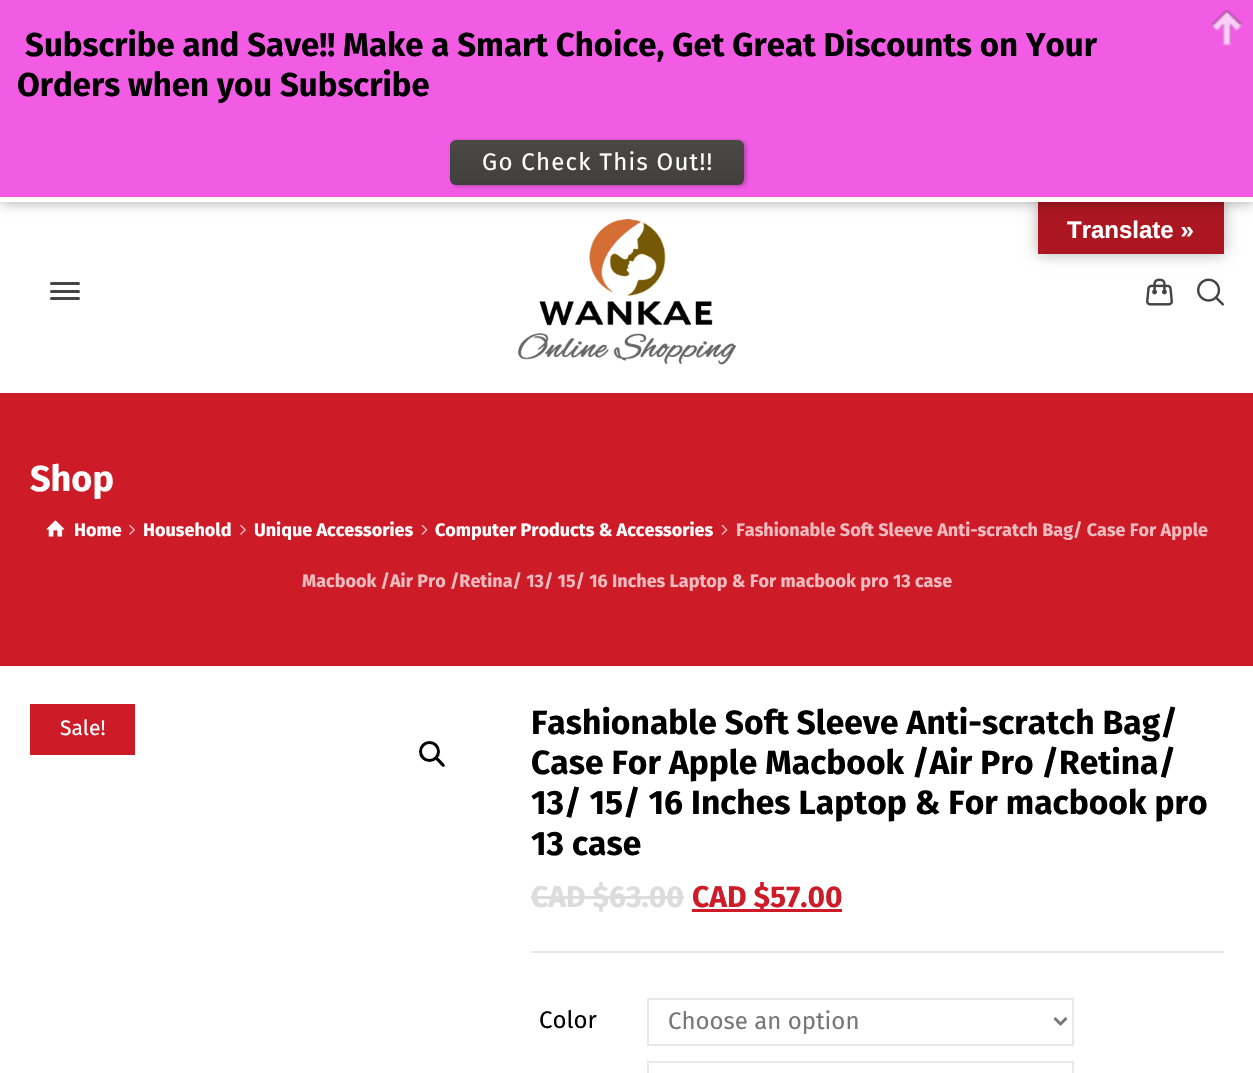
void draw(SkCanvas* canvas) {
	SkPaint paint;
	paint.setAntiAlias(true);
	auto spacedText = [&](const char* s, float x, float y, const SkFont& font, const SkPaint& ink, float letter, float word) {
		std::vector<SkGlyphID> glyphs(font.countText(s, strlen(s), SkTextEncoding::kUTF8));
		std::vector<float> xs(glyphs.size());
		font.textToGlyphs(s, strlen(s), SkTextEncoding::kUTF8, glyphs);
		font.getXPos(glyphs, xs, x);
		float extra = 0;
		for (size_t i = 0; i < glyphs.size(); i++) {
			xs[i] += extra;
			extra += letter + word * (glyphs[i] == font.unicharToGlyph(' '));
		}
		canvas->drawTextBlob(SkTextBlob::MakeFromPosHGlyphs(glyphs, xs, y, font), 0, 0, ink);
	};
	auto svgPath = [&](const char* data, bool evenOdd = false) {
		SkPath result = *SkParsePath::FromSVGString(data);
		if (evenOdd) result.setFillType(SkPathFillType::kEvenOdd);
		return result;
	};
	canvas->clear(0xffffffff);
	paint.setColor(0x4d000000);
	paint.setMaskFilter(SkMaskFilter::MakeBlur(kNormal_SkBlurStyle, 7));
	canvas->drawRect(SkRect::MakeXYWH(1038, 201, 186, 53), paint);
	paint.setMaskFilter(nullptr);
	paint.setColor(0xffab1621);
	canvas->drawRect(SkRect::MakeXYWH(1038, 202, 186, 52), paint);
	canvas->drawImageRect(SkImages::DeferredFromEncodedData(SkData::MakeFromFileName("img2.png")), SkRect::MakeXYWH(518, 219, 218, 146), SkSamplingOptions());
	paint.setColor(0x66000000);
	paint.setMaskFilter(SkMaskFilter::MakeBlur(kNormal_SkBlurStyle, 7));
	canvas->drawRect(SkRect::MakeXYWH(0, 0, 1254, 201), paint);
	paint.setMaskFilter(nullptr);
	paint.setColor(0xfff25ce5);
	canvas->drawRect(SkRect::MakeXYWH(0, 0, 1253, 197), paint);
	paint.setColor(0xffffffff);
	canvas->drawRect(SkRect::MakeXYWH(0, 197, 1253, 5), paint);
	SkFont f1(fontMgr->matchFamilyStyle("Fira Sans", SkFontStyle::Bold()), 33);
	f1.setSubpixel(true);
	paint.setColor(0xff000000);
	canvas->drawString("Subscribe and Save!! Make a Smart Choice, Get Great Discounts on Your", 25, 56, f1, paint);
	canvas->drawString("Orders when you Subscribe", 17, 96, f1, paint);
	canvas->drawImageRect(SkImages::DeferredFromEncodedData(SkData::MakeFromFileName("img1.png")), SkRect::MakeXYWH(1211, 9, 32, 37), SkSamplingOptions());
	paint.setColor(0x47000000);
	paint.setMaskFilter(SkMaskFilter::MakeBlur(kNormal_SkBlurStyle, 2));
	canvas->drawRoundRect(SkRect::MakeXYWH(452, 141, 294, 45), 6, 6, paint);
	paint.setMaskFilter(nullptr);
	paint.setColor(0xff4a4844);
	canvas->drawRoundRect(SkRect::MakeXYWH(450, 140, 294, 45), 6, 6, paint);
	{
		const SkColor colors[] = {0x00333333, 0x66333333};
		const float stops[] = {0, 1};
		const SkPoint ends[] = {{450, 140}, {450, 185}};
		paint.setShader(SkGradientShader::MakeLinear(ends, colors, stops, 2, SkTileMode::kClamp));
		paint.setAlpha(255);
	}
	canvas->drawRoundRect(SkRect::MakeXYWH(450, 140, 294, 45), 6, 6, paint);
	SkFont f2(fontMgr->matchFamilyStyle("Fira Sans", SkFontStyle::Normal()), 24);
	f2.setSubpixel(true);
	paint.setShader(nullptr);
	paint.setColor(0xffffffff);
	spacedText("Go Check This Out!!", 482, 170, f2, paint, 1.25, 0);
	SkFont f3(fontMgr->matchFamilyStyle("Liberation Sans", SkFontStyle::Bold()), 24);
	f3.setSubpixel(true);
	canvas->drawString("Translate »", 1067, 238, f3, paint);
	paint.setColor(0xff444444);
	canvas->drawRoundRect(SkRect::MakeXYWH(50, 282, 30, 3), 1.5, 1.5, paint);
	canvas->drawRoundRect(SkRect::MakeXYWH(50, 290, 30, 3), 1.5, 1.5, paint);
	canvas->drawRoundRect(SkRect::MakeXYWH(50, 297, 30, 3), 1.5, 1.5, paint);
	canvas->drawImageRect(SkImages::DeferredFromEncodedData(SkData::MakeFromFileName("img3.png")), SkRect::MakeXYWH(1146, 278, 27, 28), SkSamplingOptions());
	canvas->drawImageRect(SkImages::DeferredFromEncodedData(SkData::MakeFromFileName("img4.png")), SkRect::MakeXYWH(1197, 278, 27, 28), SkSamplingOptions());
	paint.setColor(0xffce1b28);
	canvas->drawRect(SkRect::MakeXYWH(0, 393, 1253, 273), paint);
	SkFont f4(fontMgr->matchFamilyStyle("Fira Sans", SkFontStyle::Bold()), 36);
	f4.setSubpixel(true);
	paint.setColor(0xffffffff);
	canvas->drawString("Shop", 30, 491, f4, paint);
	canvas->drawImageRect(SkImages::DeferredFromEncodedData(SkData::MakeFromFileName("img5.png")), SkRect::MakeXYWH(46, 520, 19, 17), SkSamplingOptions());
	SkFont f5(fontMgr->matchFamilyStyle("Fira Sans", SkFontStyle::Bold()), 18);
	f5.setSubpixel(true);
	canvas->drawString("Home", 74, 536, f5, paint);
	canvas->drawImageRect(SkImages::DeferredFromEncodedData(SkData::MakeFromFileName("img6.png")), SkRect::MakeXYWH(129, 524, 6, 11), SkSamplingOptions());
	canvas->drawString("Household", 143, 536, f5, paint);
	canvas->drawImageRect(SkImages::DeferredFromEncodedData(SkData::MakeFromFileName("img6.png")), SkRect::MakeXYWH(240, 524, 6, 11), SkSamplingOptions());
	canvas->drawString("Unique Accessories", 254, 536, f5, paint);
	canvas->drawImageRect(SkImages::DeferredFromEncodedData(SkData::MakeFromFileName("img7.png")), SkRect::MakeXYWH(421, 524, 7, 11), SkSamplingOptions());
	canvas->drawString("Computer Products & Accessories", 435, 536, f5, paint);
	canvas->drawImageRect(SkImages::DeferredFromEncodedData(SkData::MakeFromFileName("img7.png")), SkRect::MakeXYWH(721, 524, 7, 11), SkSamplingOptions());
	paint.setColor(0xfff0bbbf);
	canvas->drawString("Fashionable Soft Sleeve Anti-scratch Bag/ Case For Apple", 736, 536, f5, paint);
	canvas->drawString("Macbook /Air Pro /Retina/ 13/ 15/ 16 Inches Laptop & For macbook pro 13 case", 302, 587, f5, paint);
	paint.setColor(0xffce1b28);
	canvas->drawRect(SkRect::MakeXYWH(30, 704, 105, 51), paint);
	SkFont f6(fontMgr->matchFamilyStyle("Fira Sans", SkFontStyle::Normal()), 21);
	f6.setSubpixel(true);
	paint.setColor(0xffffffff);
	canvas->drawString("Sale!", 60, 735, f6, paint);
	SkFont f7(fontMgr->matchFamilyStyle("Fira Sans", SkFontStyle::Bold()), 33.6);
	f7.setSubpixel(true);
	paint.setColor(0xff000000);
	canvas->drawString("Fashionable Soft Sleeve Anti-scratch Bag/", 531, 734, f7, paint);
	canvas->drawString("Case For Apple Macbook /Air Pro /Retina/", 531, 774, f7, paint);
	canvas->drawString("13/ 15/ 16 Inches Laptop & For macbook pro", 531, 814, f7, paint);
	canvas->drawString("13 case", 531, 855, f7, paint);
	SkFont f8(fontMgr->matchFamilyStyle("Fira Sans", SkFontStyle::Bold()), 30);
	f8.setSubpixel(true);
	paint.setColor(0xffdcdcdc);
	canvas->drawString("CAD $63.00", 531, 907, f8, paint);
	canvas->drawRect(SkRect::MakeXYWH(531, 896, 153, 3), paint);
	paint.setColor(0xffce1b28);
	canvas->drawRect(SkRect::MakeXYWH(692, 909, 150, 3), paint);
	canvas->drawString("CAD $57.00", 692, 907, f8, paint);
	paint.setColor(0xffe8e8e8);
	canvas->drawRect(SkRect::MakeXYWH(531, 951, 693, 2), paint);
	paint.setColor(0xff000000);
	canvas->drawString("Color", 539, 1028, f2, paint);
	paint.setStroke(true);
	paint.setStrokeWidth(2);
	paint.setColor(0xffe8e8e8);
	canvas->drawRect(SkRect::MakeXYWH(648, 999, 425, 46), paint);
	paint.setStrokeWidth(3);
	paint.setColor(0xff777777);
	canvas->drawPath(svgPath("M1054.5 1018L1060.5 1024L1066.5 1018"), paint);
	paint.setStroke(false);
	canvas->drawString("Choose an option", 668, 1029, f2, paint);
	paint.setStroke(true);
	paint.setStrokeWidth(2);
	paint.setColor(0xffe8e8e8);
	canvas->drawRect(SkRect::MakeXYWH(648, 1062, 425, 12), paint);
	paint.setStrokeWidth(3);
	paint.setColor(0xff000000);
	canvas->drawCircle(429.5, 751.5, 9, paint);
	paint.setStroke(false);
	canvas->drawPath(svgPath("M436 758C437.5 756 440.5 760 441.5 761C442 762 446 764.5 444.5 766.5C442.5 768 440 764 439 763C438 762 434.5 759.5 436 758Z"), paint);
}
